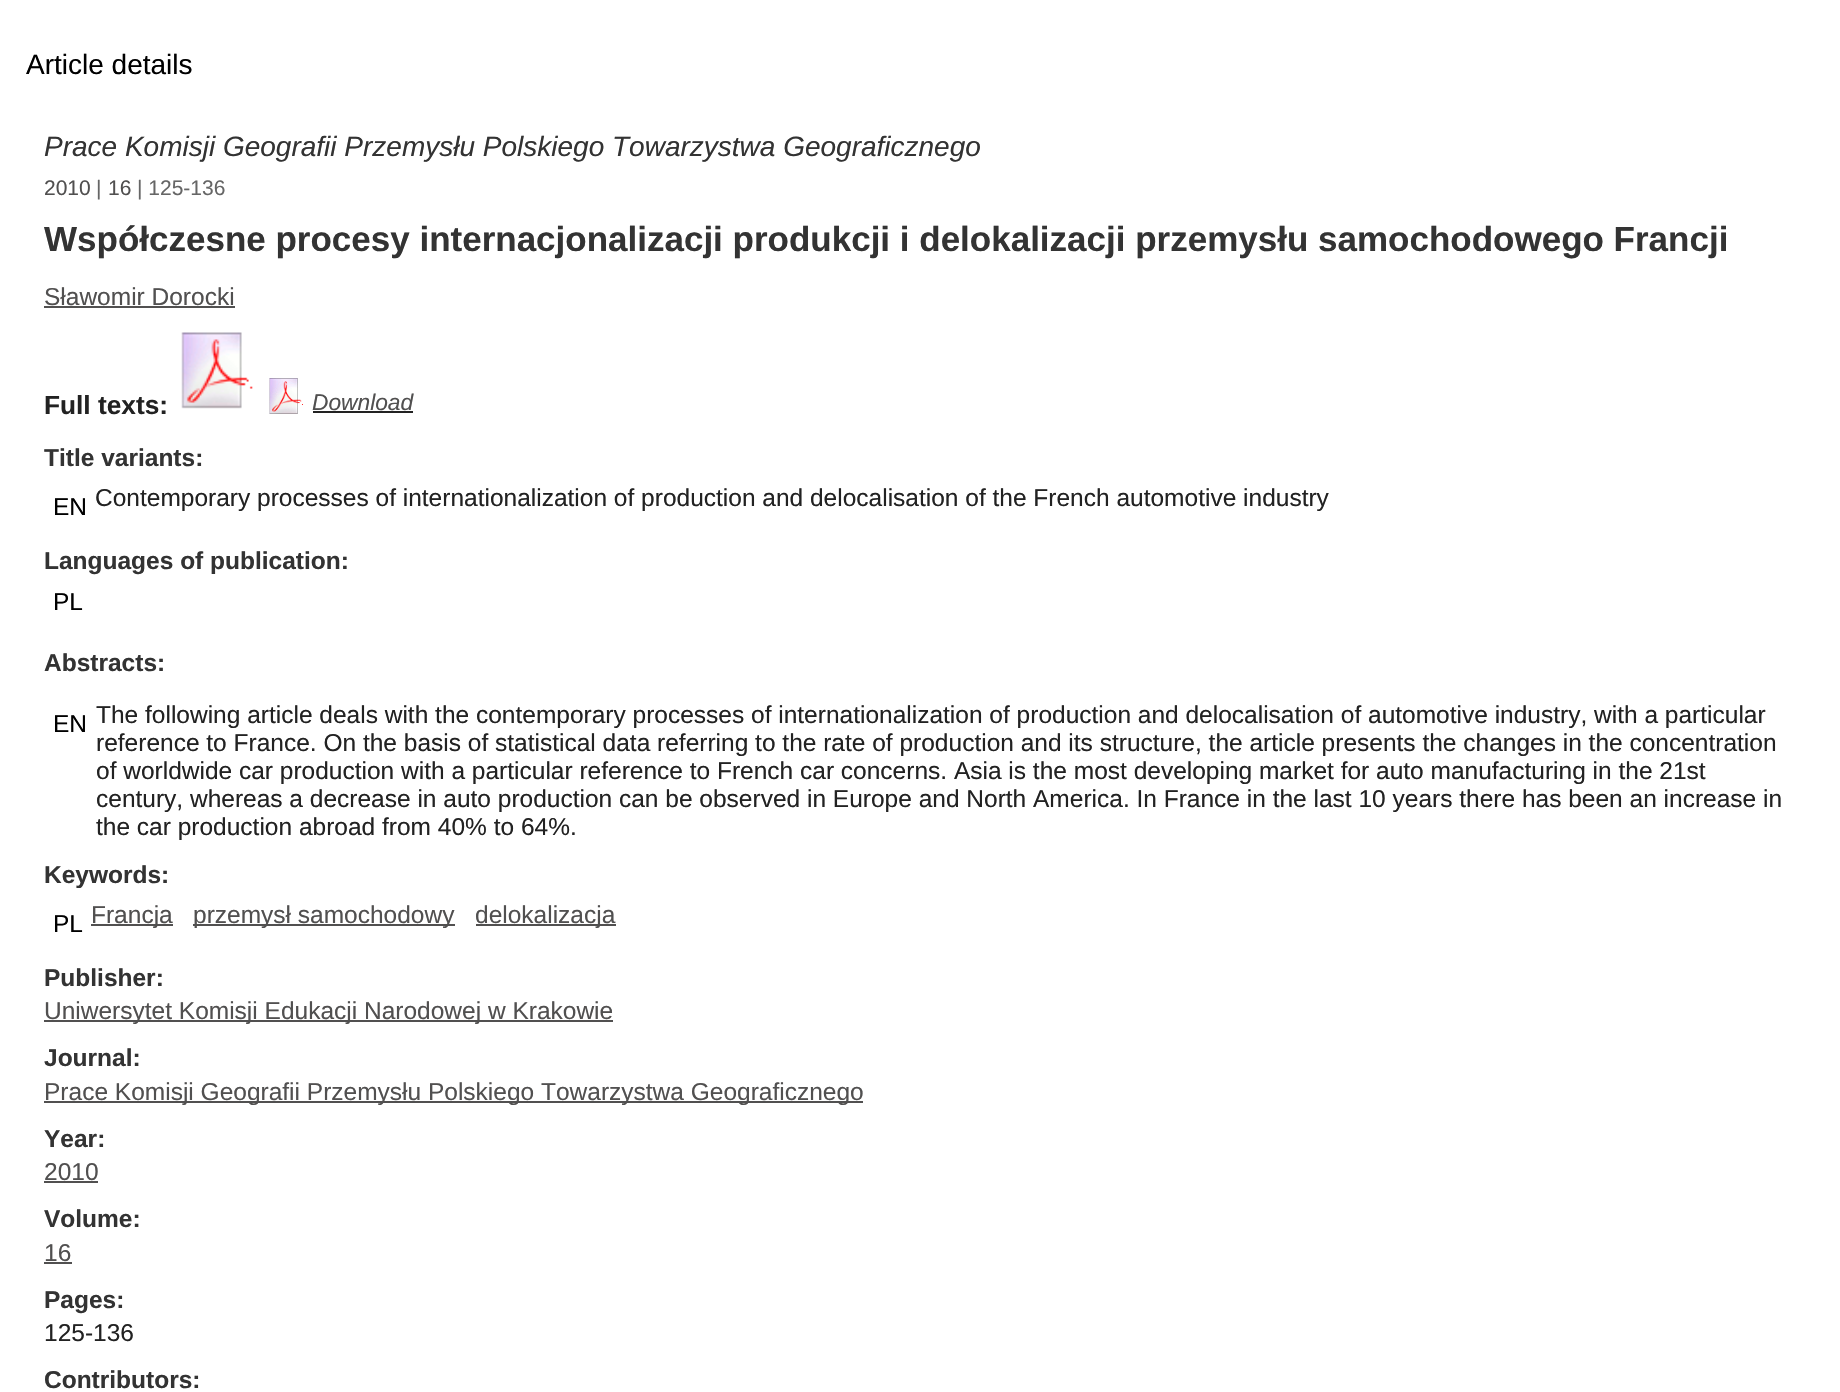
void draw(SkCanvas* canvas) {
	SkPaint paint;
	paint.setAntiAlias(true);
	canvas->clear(0xffffffff);
	SkFont f1(fontMgr->matchFamilyStyle("Liberation Sans", SkFontStyle::Normal()), 28);
	f1.setSubpixel(true);
	paint.setColor(0xff000000);
	canvas->drawString("Article details", 26, 74, f1, paint);
	SkFont f2(fontMgr->matchFamilyStyle("Liberation Sans", SkFontStyle::Italic()), 28);
	f2.setSubpixel(true);
	paint.setColor(0xff333333);
	canvas->drawString("Prace Komisji Geografii Przemysłu Polskiego Towarzystwa Geograficznego", 44, 156, f2, paint);
	SkFont f3(fontMgr->matchFamilyStyle("Liberation Sans", SkFontStyle::Normal()), 21);
	f3.setSubpixel(true);
	paint.setColor(0xff515050);
	canvas->drawString("2010", 44, 195, f3, paint);
	paint.setColor(0xff666666);
	canvas->drawString("|", 96, 195, f3, paint);
	paint.setColor(0xff515050);
	canvas->drawString("16", 108, 195, f3, paint);
	paint.setColor(0xff666666);
	canvas->drawString("| 125-136", 137, 195, f3, paint);
	SkFont f4(fontMgr->matchFamilyStyle("Liberation Sans", SkFontStyle::Bold()), 35);
	f4.setSubpixel(true);
	paint.setColor(0xff333333);
	canvas->drawString("Współczesne procesy internacjonalizacji produkcji i delokalizacji przemysłu samochodowego Francji", 44, 251, f4, paint);
	SkFont f5(fontMgr->matchFamilyStyle("Liberation Sans", SkFontStyle::Normal()), 24.5);
	f5.setSubpixel(true);
	paint.setColor(0xff515050);
	canvas->drawString("Sławomir Dorocki", 44, 305, f5, paint);
	canvas->drawRect(SkRect::MakeXYWH(44, 306, 191, 2), paint);
	SkFont f6(fontMgr->matchFamilyStyle("Liberation Sans", SkFontStyle::Bold()), 26.25);
	f6.setSubpixel(true);
	paint.setColor(0xff222222);
	canvas->drawString("Full texts:", 44, 414, f6, paint);
	canvas->drawImageRect(SkImages::DeferredFromEncodedData(SkData::MakeFromFileName("img1.png")), SkRect::MakeXYWH(181, 332, 72, 77), SkSamplingOptions());
	canvas->drawImageRect(SkImages::DeferredFromEncodedData(SkData::MakeFromFileName("img2.png")), SkRect::MakeXYWH(269, 378, 34, 36), SkSamplingOptions());
	SkFont f7(fontMgr->matchFamilyStyle("Liberation Sans", SkFontStyle::Italic()), 22.75);
	f7.setSubpixel(true);
	paint.setColor(0xff515050);
	canvas->drawString("Download", 312, 410, f7, paint);
	paint.setColor(0xff222222);
	canvas->drawRect(SkRect::MakeXYWH(313, 411, 100, 2), paint);
	SkFont f8(fontMgr->matchFamilyStyle("Liberation Sans", SkFontStyle::Bold()), 24.5);
	f8.setSubpixel(true);
	paint.setColor(0xff333333);
	canvas->drawString("Title variants:", 44, 466, f8, paint);
	paint.setColor(0xff000000);
	canvas->drawString("EN", 53, 515, f5, paint);
	paint.setColor(0xff222222);
	canvas->drawString("Contemporary processes of internationalization of production and delocalisation of the French automotive industry", 95, 506, f5, paint);
	paint.setColor(0xff333333);
	canvas->drawString("Languages of publication:", 44, 569, f8, paint);
	paint.setColor(0xff000000);
	canvas->drawString("PL", 53, 610, f5, paint);
	paint.setColor(0xff333333);
	canvas->drawString("Abstracts:", 44, 671, f8, paint);
	paint.setColor(0xff000000);
	canvas->drawString("EN", 53, 732, f5, paint);
	paint.setColor(0xff222222);
	canvas->drawString("The following article deals with the contemporary processes of internationalization of production and delocalisation of automotive industry, with a particular", 96, 723, f5, paint);
	canvas->drawString("reference to France. On the basis of statistical data referring to the rate of production and its structure, the article presents the changes in the concentration", 96, 751, f5, paint);
	canvas->drawString("of worldwide car production with a particular reference to French car concerns. Asia is the most developing market for auto manufacturing in the 21st", 96, 779, f5, paint);
	canvas->drawString("century, whereas a decrease in auto production can be observed in Europe and North America. In France in the last 10 years there has been an increase in", 96, 807, f5, paint);
	canvas->drawString("the car production abroad from 40% to 64%.", 96, 835, f5, paint);
	paint.setColor(0xff333333);
	canvas->drawString("Keywords:", 44, 883, f8, paint);
	paint.setColor(0xff000000);
	canvas->drawString("PL", 53, 932, f5, paint);
	paint.setColor(0xff515050);
	canvas->drawRect(SkRect::MakeXYWH(91, 924, 82, 2), paint);
	canvas->drawString("Francja", 91, 923, f5, paint);
	canvas->drawRect(SkRect::MakeXYWH(193, 924, 262, 2), paint);
	canvas->drawString("przemysł samochodowy", 193, 923, f5, paint);
	canvas->drawRect(SkRect::MakeXYWH(476, 924, 140, 2), paint);
	canvas->drawString("delokalizacja", 475, 923, f5, paint);
	paint.setColor(0xff333333);
	canvas->drawString("Publisher:", 44, 986, f8, paint);
	paint.setColor(0xff515050);
	canvas->drawRect(SkRect::MakeXYWH(44, 1020, 569, 2), paint);
	canvas->drawString("Uniwersytet Komisji Edukacji Narodowej w Krakowie", 44, 1019, f5, paint);
	paint.setColor(0xff333333);
	canvas->drawString("Journal:", 44, 1066, f8, paint);
	paint.setColor(0xff515050);
	canvas->drawRect(SkRect::MakeXYWH(44, 1101, 819, 2), paint);
	canvas->drawString("Prace Komisji Geografii Przemysłu Polskiego Towarzystwa Geograficznego", 44, 1100, f5, paint);
	paint.setColor(0xff333333);
	canvas->drawString("Year:", 44, 1147, f8, paint);
	paint.setColor(0xff515050);
	canvas->drawString("2010", 44, 1180, f5, paint);
	canvas->drawRect(SkRect::MakeXYWH(44, 1181, 54, 2), paint);
	paint.setColor(0xff333333);
	canvas->drawString("Volume:", 44, 1227, f8, paint);
	paint.setColor(0xff515050);
	canvas->drawString("16", 44, 1261, f5, paint);
	canvas->drawRect(SkRect::MakeXYWH(44, 1262, 28, 2), paint);
	paint.setColor(0xff333333);
	canvas->drawString("Pages:", 44, 1308, f8, paint);
	paint.setColor(0xff222222);
	canvas->drawString("125-136", 44, 1341, f5, paint);
	paint.setColor(0xff333333);
	canvas->drawString("Contributors:", 44, 1388, f8, paint);
}
